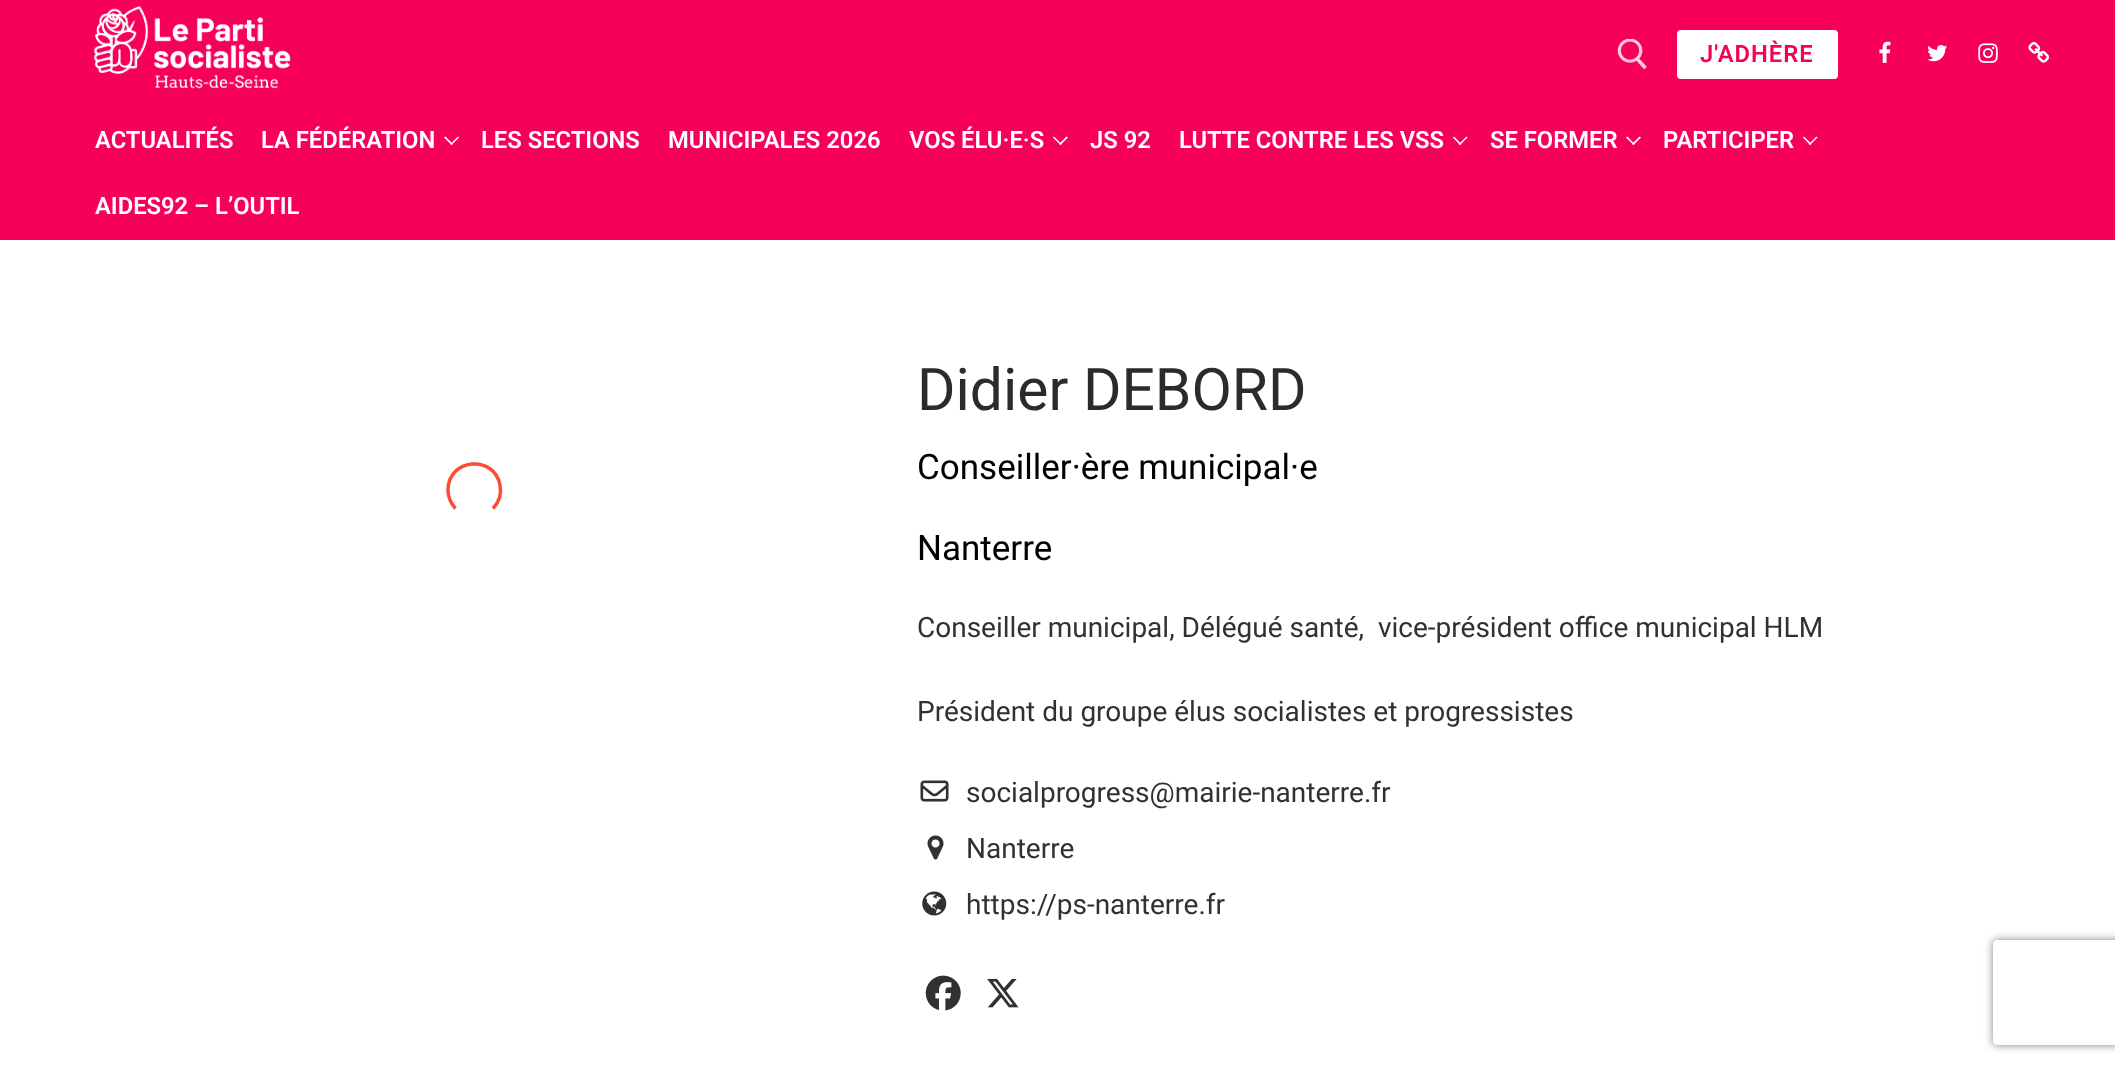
<?xml version="1.0" encoding="UTF-8"?>
<svg xmlns="http://www.w3.org/2000/svg" width="2115" height="1068">
    <defs>
        <clipPath id="clip1"><path d="M 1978 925 H 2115 V 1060 H 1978 Z M 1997 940 H 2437 C 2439 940 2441 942 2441 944 V 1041 C 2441 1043 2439 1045 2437 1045 H 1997 C 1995 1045 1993 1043 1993 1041 V 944 C 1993 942 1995 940 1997 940 Z" clip-rule="evenodd"/></clipPath>
        <filter id="blur1" x="-50%" y="-200%" width="200%" height="500%"><feGaussianBlur stdDeviation="4.5"/></filter>
    </defs>
    <rect width="100%" height="100%" fill="#FFFFFF"/>
    <rect x="0" y="0" width="2115" height="240" fill="#F70059"/>
    <image x="93" y="6" width="198" height="83" href="img_01.png"/>
    <image x="1617" y="39" width="30" height="31" href="img_02.png"/>
    <rect x="1677" y="30" width="161" height="49" rx="4" fill="#FFFFFF"/>
    <text x="1700" y="62" font-family="Roboto" font-size="23.75" font-weight="600" letter-spacing="1" fill="#F70059">J'ADHÈRE</text>
    <image x="1879" y="41" width="12" height="22" href="img_03.png"/>
    <image x="1927" y="45" width="21" height="17" href="img_04.png"/>
    <image x="1978" y="43" width="20" height="20" href="img_05.png"/>
    <image x="2028" y="42" width="22" height="21" href="img_06.png"/>
    <text x="95" y="148" font-family="Roboto" font-size="23.75" font-weight="600" fill="#FFFFFF">ACTUALITÉS</text>
    <text x="261" y="148" font-family="Roboto" font-size="23.75" font-weight="600" fill="#FFFFFF">LA FÉDÉRATION</text>
    <path d="M 451.5 145 L 444 137.5 L 445.5 136.5 L 453 144 Z" fill="#FFFFFF"/>
    <path d="M 451.5 145 L 450.5 144 L 458 136.5 L 459 137.5 Z" fill="#FFFFFF"/>
    <text x="481" y="148" font-family="Roboto" font-size="23.75" font-weight="600" fill="#FFFFFF">LES SECTIONS</text>
    <text x="668" y="148" font-family="Roboto" font-size="23.75" font-weight="600" fill="#FFFFFF">MUNICIPALES 2026</text>
    <text x="909" y="148" font-family="Roboto" font-size="23.75" font-weight="600" fill="#FFFFFF">VOS ÉLU·E·S</text>
    <path d="M 1060.5 145 L 1053 137.5 L 1054 136.5 L 1061.5 144 Z" fill="#FFFFFF"/>
    <path d="M 1060.5 145 L 1059 144 L 1066.5 136.5 L 1068 137.5 Z" fill="#FFFFFF"/>
    <text x="1090" y="148" font-family="Roboto" font-size="23.75" font-weight="600" fill="#FFFFFF">JS 92</text>
    <text x="1179" y="148" font-family="Roboto" font-size="23.75" font-weight="600" fill="#FFFFFF">LUTTE CONTRE LES VSS</text>
    <path d="M 1460 145 L 1453 137.5 L 1454 136.5 L 1461.5 144 Z" fill="#FFFFFF"/>
    <path d="M 1460 145 L 1459 144 L 1466.5 136.5 L 1467.5 137.5 Z" fill="#FFFFFF"/>
    <text x="1490" y="148" font-family="Roboto" font-size="23.75" font-weight="600" fill="#FFFFFF">SE FORMER</text>
    <path d="M 1633.5 145 L 1626 137.5 L 1627.5 136.5 L 1634.5 144 Z" fill="#FFFFFF"/>
    <path d="M 1633.5 145 L 1632 144 L 1639.5 136.5 L 1641 137.5 Z" fill="#FFFFFF"/>
    <text x="1663" y="148" font-family="Roboto" font-size="23.75" font-weight="600" fill="#FFFFFF">PARTICIPER</text>
    <path d="M 1810 145 L 1803 137.5 L 1804 136.5 L 1811.5 144 Z" fill="#FFFFFF"/>
    <path d="M 1810 145 L 1809 144 L 1816.5 136.5 L 1817.5 137.5 Z" fill="#FFFFFF"/>
    <text x="95" y="214" font-family="Roboto" font-size="23.75" font-weight="600" fill="#FFFFFF">AIDES92 – L’OUTIL</text>
    <path d="M 455.5 508.5 C 451 503.5 448 497 448 490 C 448 458.5 494 454 500 485 C 501.5 493.5 499 502.5 493 508.5" fill="none" stroke="#FB4C35" stroke-width="3.5"/>
    <text x="917" y="410" font-family="Roboto" font-size="58.75" fill="#2B2B2B">Didier DEBORD</text>
    <text x="917" y="479" font-family="Roboto" font-size="35" fill="#000000">Conseiller·ère municipal·e</text>
    <text x="917" y="560" font-family="Roboto" font-size="35" fill="#000000">Nanterre</text>
    <text x="917" y="637" font-family="Roboto" font-size="28" fill="#313131" xml:space="preserve">Conseiller municipal, Délégué santé,  vice-président office municipal HLM</text>
    <text x="917" y="721" font-family="Roboto" font-size="28" fill="#313131">Président du groupe élus socialistes et progressistes</text>
    <image x="920" y="780" width="29" height="22" href="img_07.png"/>
    <text x="966" y="802" font-family="Roboto" font-size="28" fill="#313131">socialprogress@mairie-nanterre.fr</text>
    <image x="927" y="835" width="17" height="25" href="img_08.png"/>
    <text x="966" y="858" font-family="Roboto" font-size="28" fill="#313131">Nanterre</text>
    <image x="922" y="891" width="25" height="25" href="img_09.png"/>
    <text x="966" y="914" font-family="Roboto" font-size="28" fill="#313131">https://ps-nanterre.fr</text>
    <image x="925" y="975" width="36" height="36" href="img_10.png"/>
    <image x="987" y="978" width="32" height="30" href="img_11.png"/>
    <g clip-path="url(#clip1)">
        <rect x="1993" y="940" width="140" height="105" rx="4" fill="#808080" filter="url(#blur1)"/>
    </g>
</svg>
